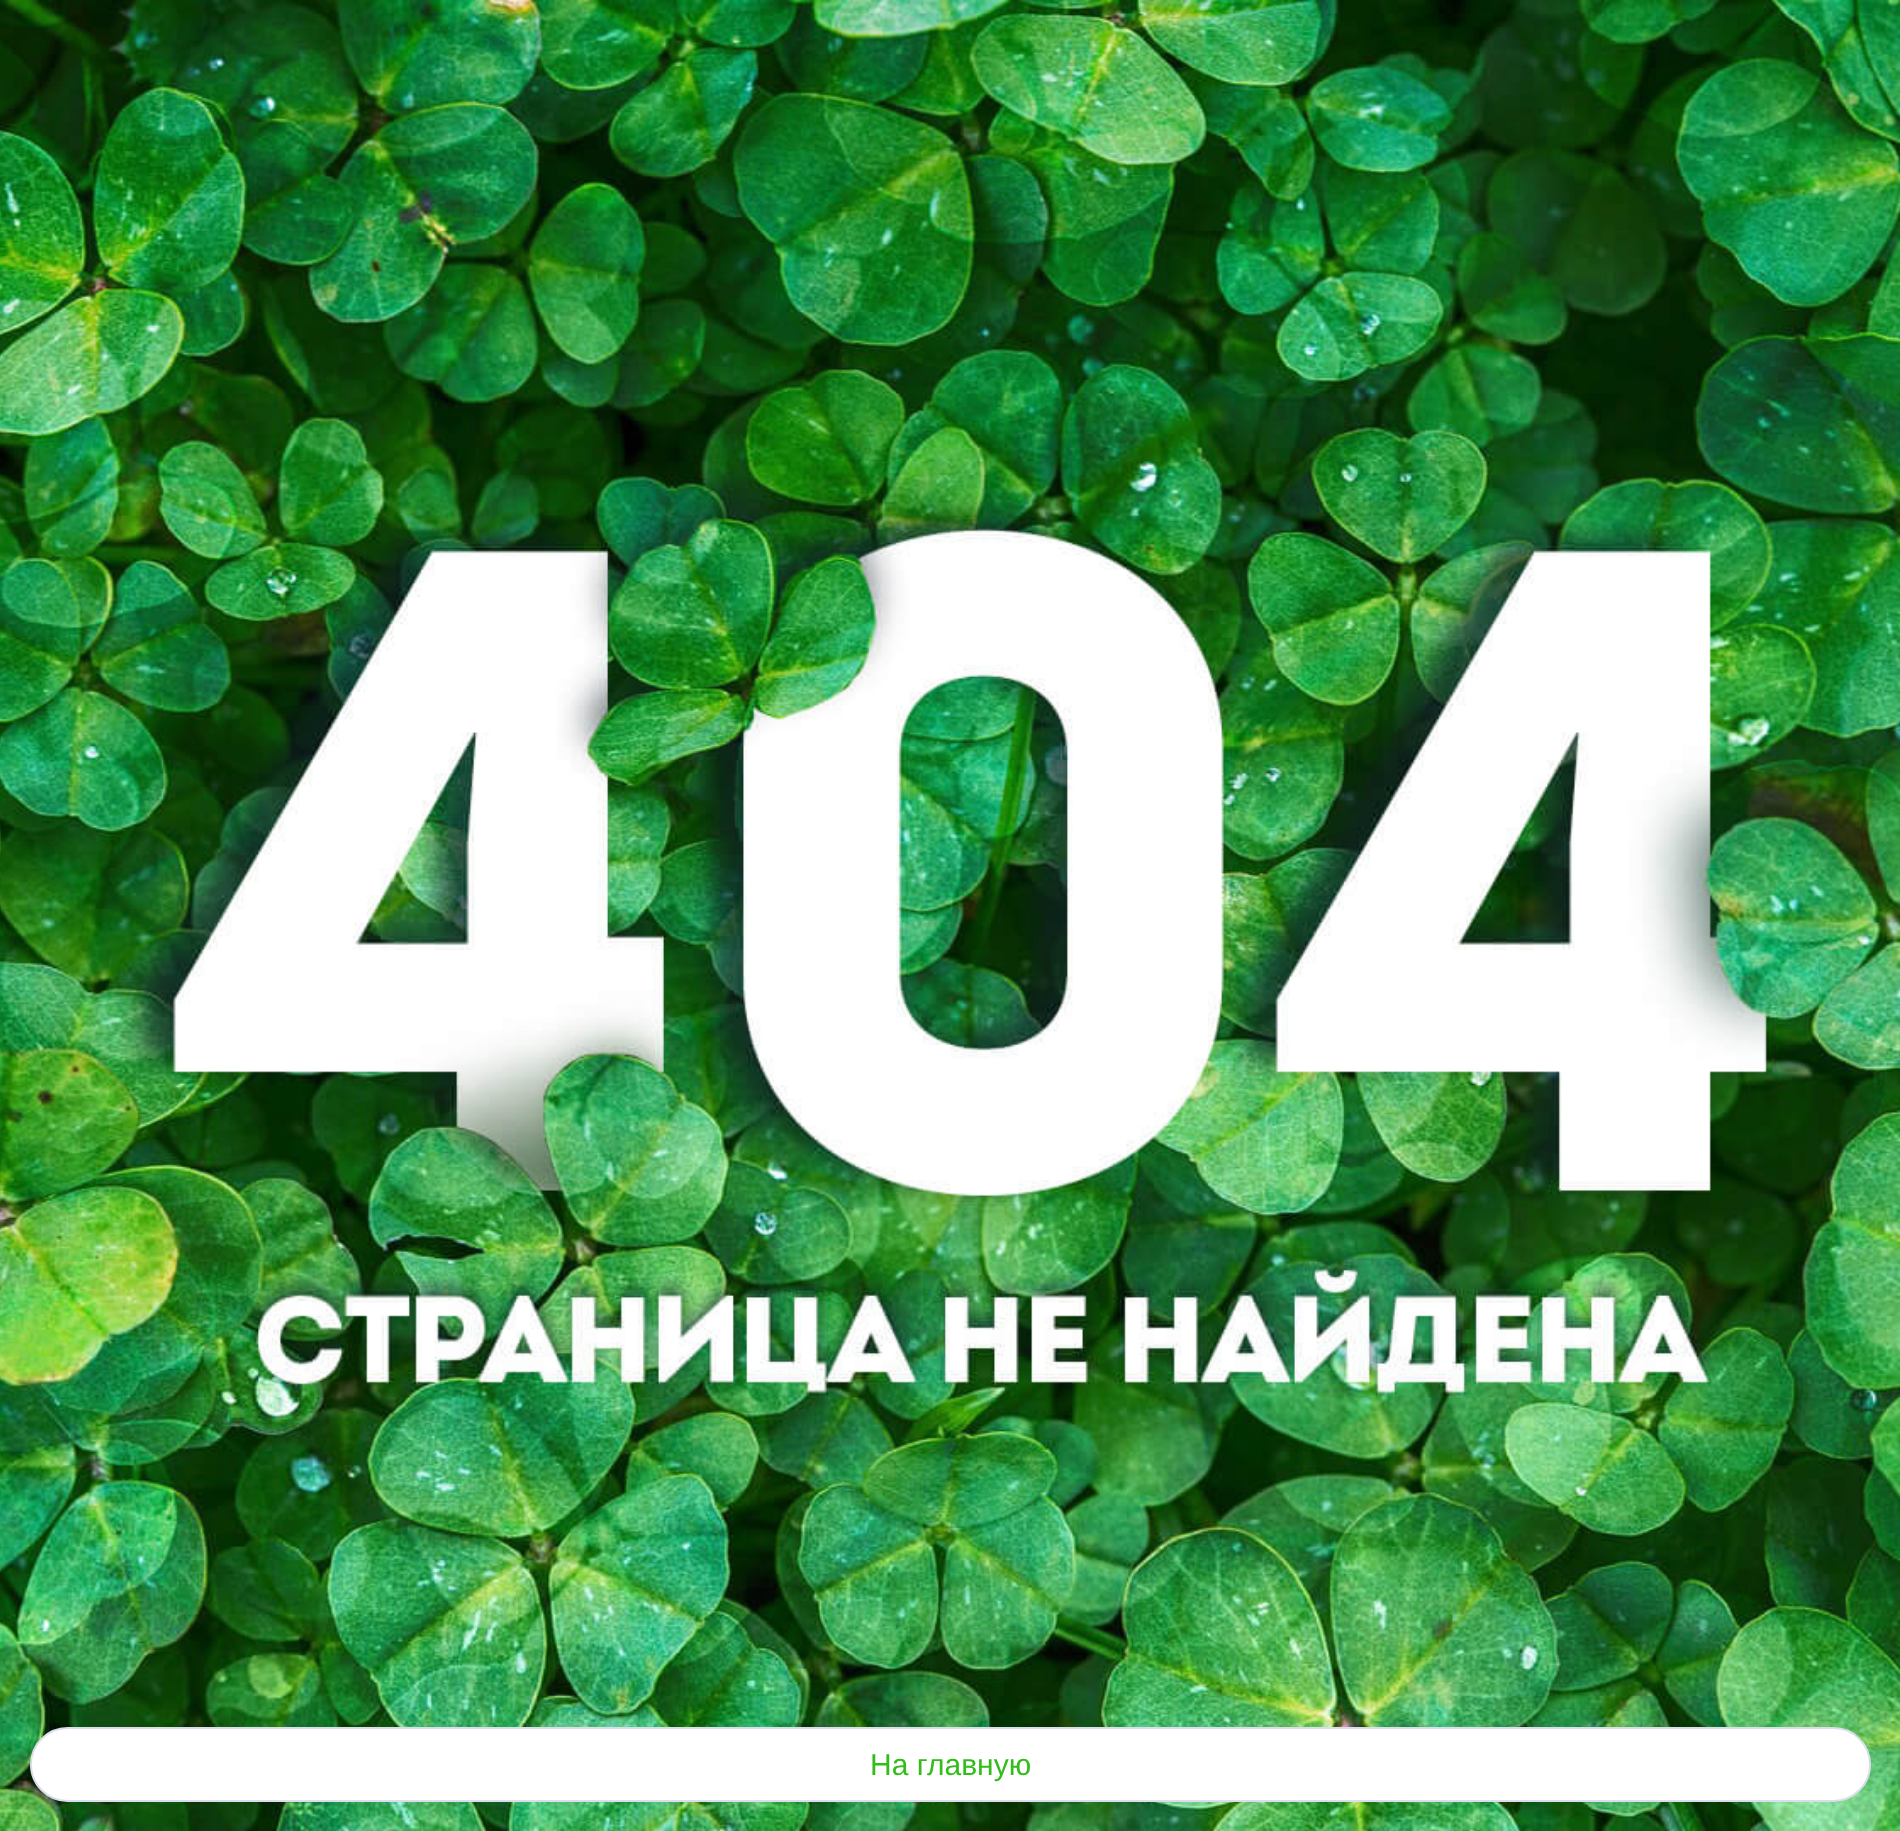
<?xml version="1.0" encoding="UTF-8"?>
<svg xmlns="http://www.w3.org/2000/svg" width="1900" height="1831">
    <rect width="100%" height="100%" fill="#FFFFFF"/>
    <image x="0" y="0" width="1900" height="1831" href="img_01.png"/>
    <rect x="31" y="1728" width="1839" height="73" rx="36.5" fill="#FFFFFF" stroke="#DADEEC" stroke-width="2"/>
    <text x="870" y="1775" font-family="Liberation Sans" font-size="30" fill="#32BD1B">На главную</text>
</svg>
